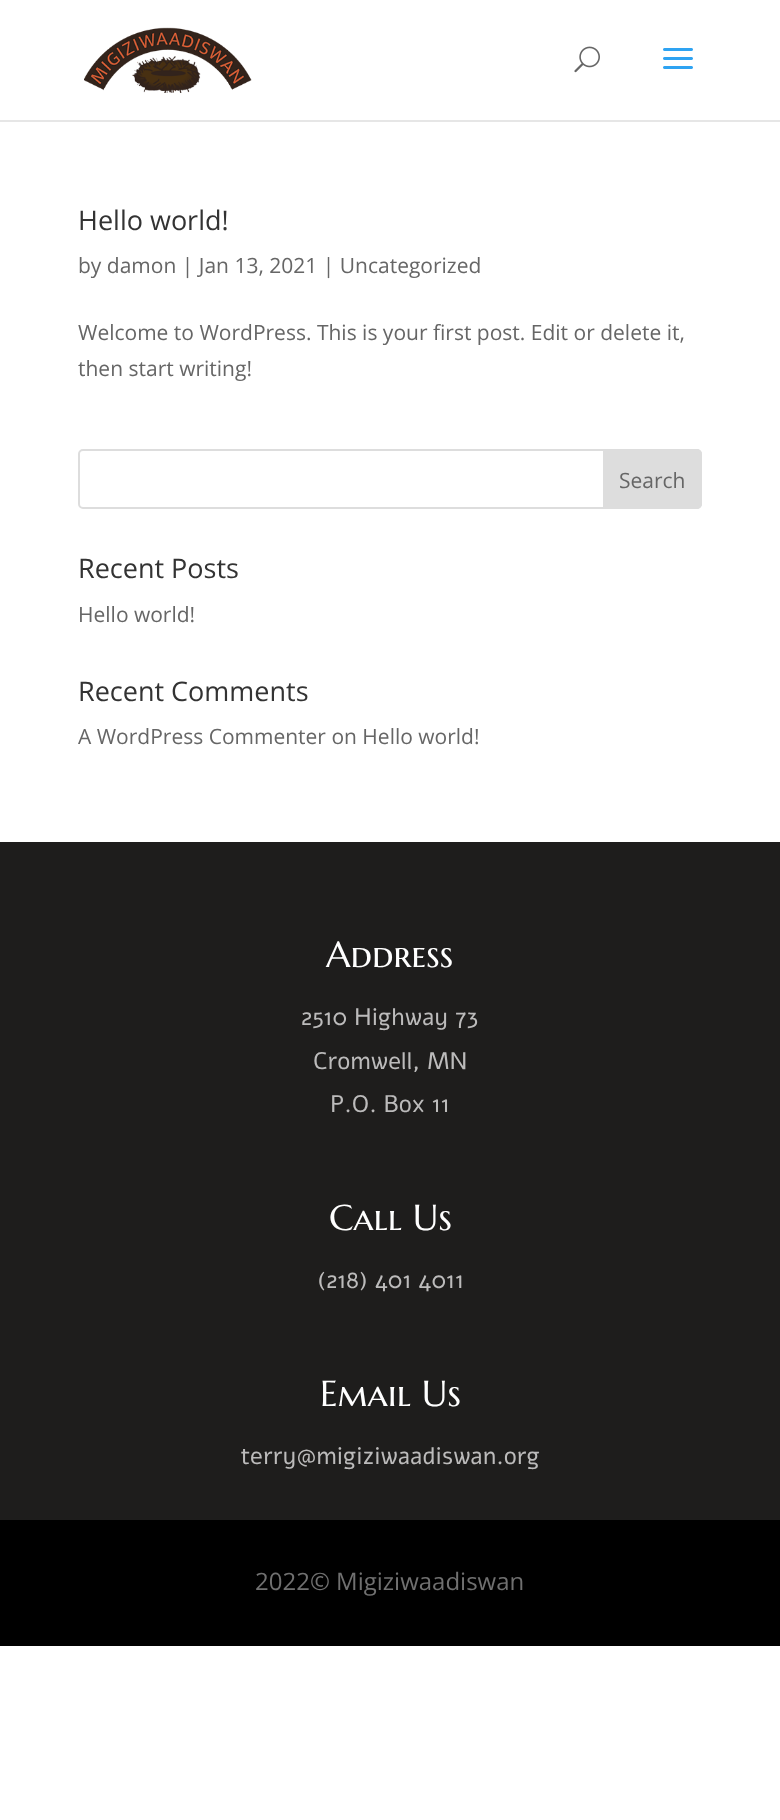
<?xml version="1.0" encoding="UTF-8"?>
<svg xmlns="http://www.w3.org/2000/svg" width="780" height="1820">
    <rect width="100%" height="100%" fill="#FFFFFF"/>
    <rect x="0" y="120" width="780" height="2" fill="#E6E6E6"/>
    <image x="84" y="27" width="168" height="66" href="img_01.png"/>
    <image x="574" y="46" width="26" height="27" href="img_02.png"/>
    <image x="663" y="48" width="30" height="21" href="img_03.png"/>
    <text x="78" y="230" font-family="Open Sans" font-size="27" fill="#333333">Hello world!</text>
    <text x="78" y="273" font-family="Open Sans" font-size="21" fill="#666666">by damon | Jan 13, 2021 | Uncategorized</text>
    <text font-family="Open Sans" font-size="21" fill="#666666">
        <tspan x="78" y="340">Welcome to WordPress. This is your first post. Edit or delete it,</tspan>
        <tspan x="78" y="376">then start writing!</tspan>
    </text>
    <rect x="79" y="450" width="622" height="58" rx="4" fill="none" stroke="#DDDDDD" stroke-width="2"/>
    <path d="M 604 450 H 697 C 699 450 701 452 701 454 V 504 C 701 506 699 508 697 508 H 604 Z" fill="#DDDDDD" stroke="#DDDDDD" stroke-width="2"/>
    <text x="619" y="488" font-family="Open Sans" font-size="21" fill="#666666">Search</text>
    <text x="78" y="578" font-family="Open Sans" font-size="27" fill="#333333">Recent Posts</text>
    <text x="78" y="622" font-family="Open Sans" font-size="21" fill="#666666">Hello world!</text>
    <text x="78" y="701" font-family="Open Sans" font-size="27" fill="#333333">Recent Comments</text>
    <text x="78" y="744" font-family="Open Sans" font-size="21" fill="#666666">A WordPress Commenter on Hello world!</text>
    <rect x="0" y="842" width="780" height="678" fill="#1E1D1C"/>
    <text x="326" y="967" font-family="Marcellus SC" font-size="36" fill="#FFFFFF">Address</text>
    <text x="301" y="1025" font-family="Alef" font-size="24" fill="#BCBBBB">2510 Highway 73</text>
    <text x="313" y="1069" font-family="Alef" font-size="24" fill="#BCBBBB">Cromwell, MN</text>
    <text x="330" y="1112" font-family="Alef" font-size="24" fill="#BCBBBB">P.O. Box 11</text>
    <text x="329" y="1230" font-family="Marcellus SC" font-size="36" fill="#FFFFFF">Call Us</text>
    <text x="317" y="1288" font-family="Alef" font-size="24" fill="#BCBBBB">(218) 401 4011</text>
    <text x="320" y="1406" font-family="Marcellus SC" font-size="36" fill="#FFFFFF">Email Us</text>
    <text x="240" y="1464" font-family="Alef" font-size="24" fill="#BCBBBB">terry@migiziwaadiswan.org</text>
    <rect x="0" y="1520" width="780" height="126" fill="#000000"/>
    <text x="255" y="1590" font-family="Open Sans" font-size="24" fill="#707070">2022© Migiziwaadiswan</text>
</svg>
